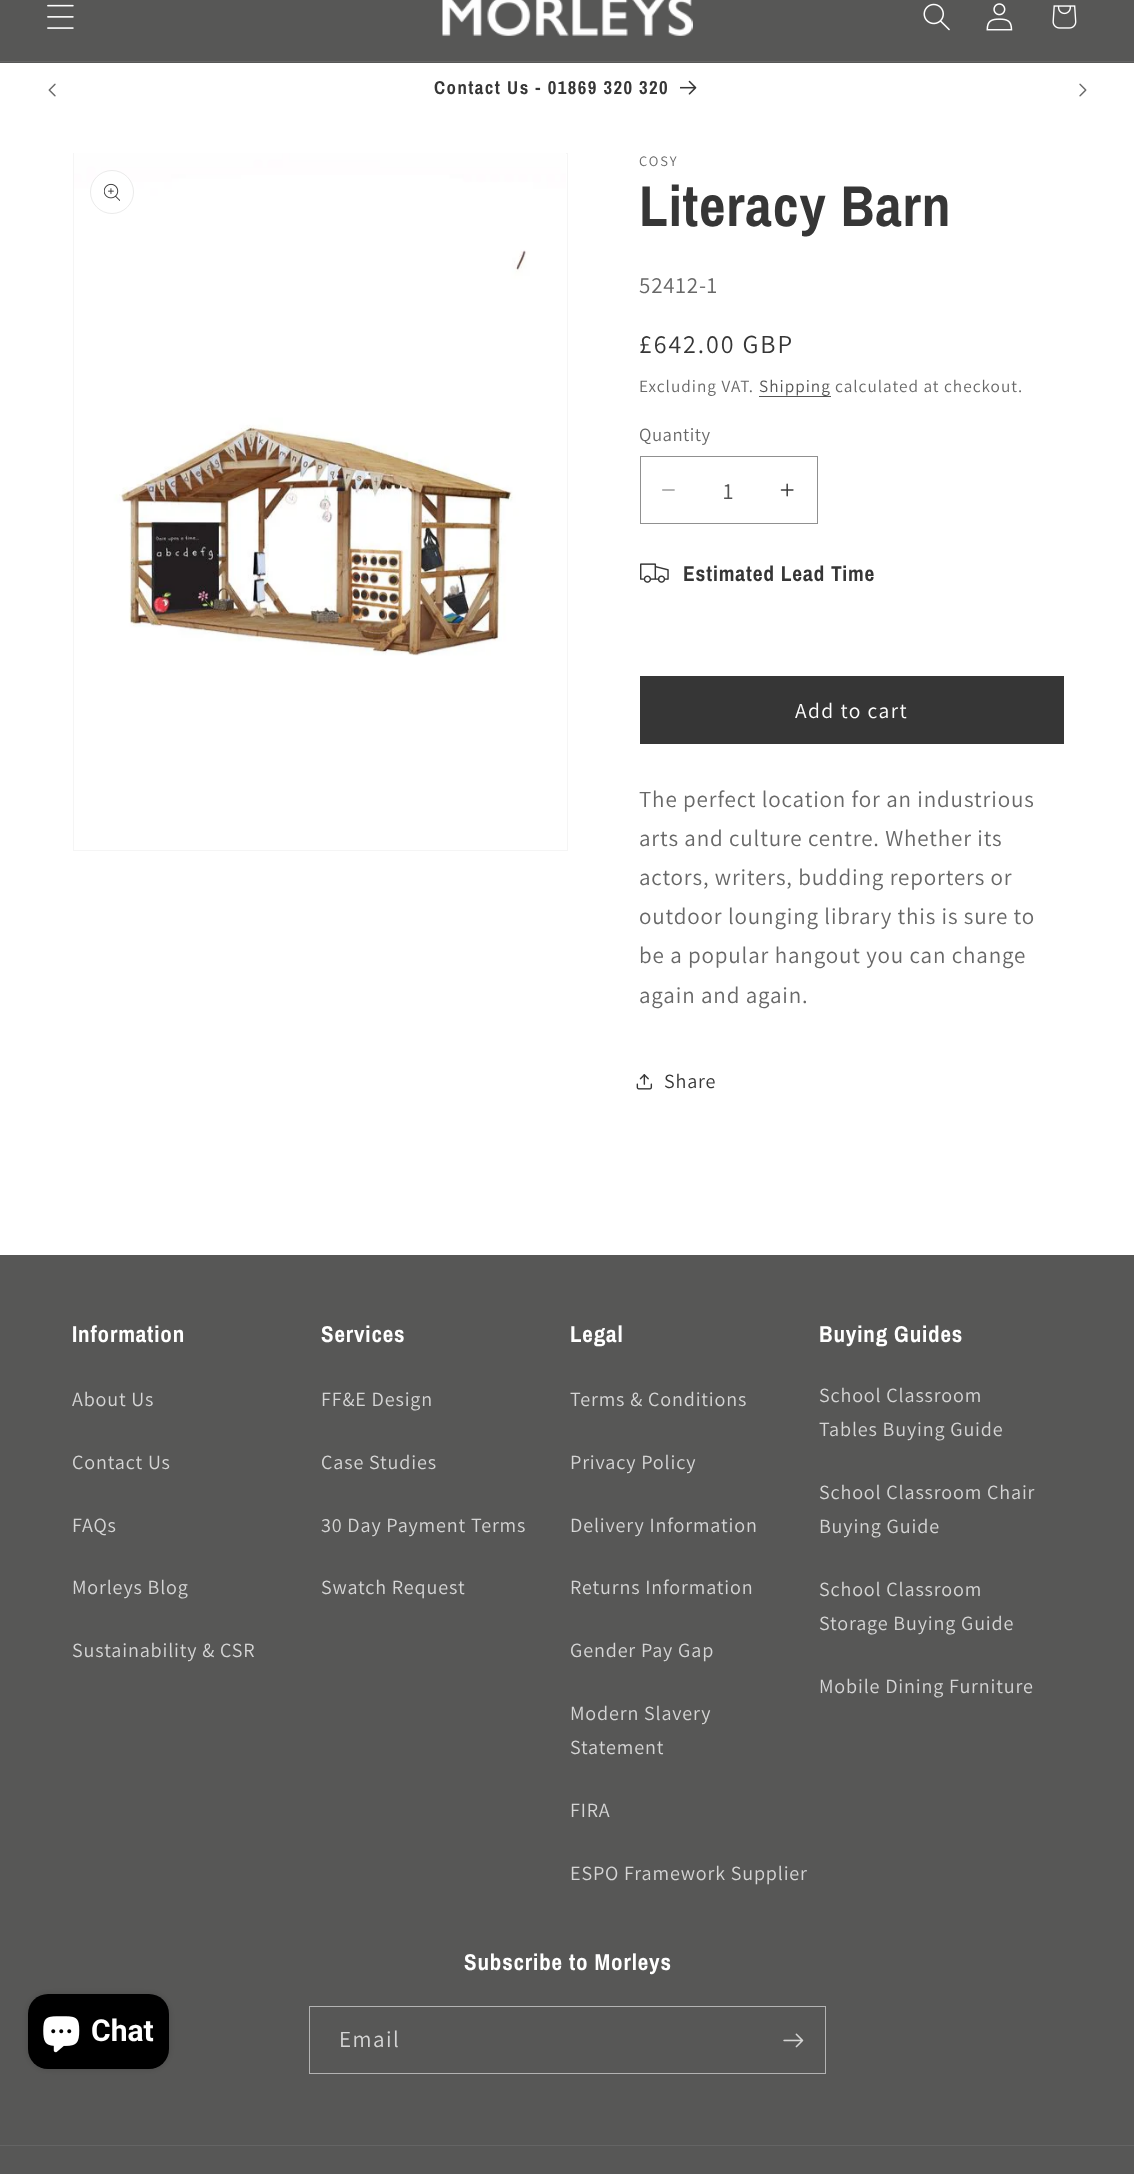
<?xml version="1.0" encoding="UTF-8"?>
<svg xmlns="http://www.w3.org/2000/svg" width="1134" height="2174">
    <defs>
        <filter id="blur1" x="-50%" y="-200%" width="200%" height="500%"><feGaussianBlur stdDeviation="3"/></filter>
    </defs>
    <rect width="100%" height="100%" fill="#FFFFFF"/>
    <rect x="0" y="0" width="1134" height="63" fill="#575756"/>
    <rect x="0" y="61" width="1134" height="1" fill="#646464"/>
    <image x="47" y="4" width="27" height="25" href="img_01.png"/>
    <image x="442" y="0" width="251" height="36" href="img_02.png"/>
    <image x="923" y="3" width="27" height="28" href="img_03.png"/>
    <image x="986" y="3" width="27" height="28" href="img_04.png"/>
    <image x="1052" y="5" width="25" height="24" href="img_05.png"/>
    <image x="48" y="83" width="8" height="14" href="img_06.png"/>
    <text x="434" y="94" font-family="Archivo Narrow" font-size="18.75" font-weight="700" letter-spacing="1.45" fill="#363636">Contact Us - 01869 320 320</text>
    <image x="680" y="80" width="17" height="15" href="img_07.png"/>
    <image x="1079" y="83" width="8" height="14" href="img_08.png"/>
    <rect x="73.5" y="153.5" width="494" height="697" fill="none" stroke="#F5F5F5"/>
    <image x="74" y="153" width="492" height="503" href="img_09.png"/>
    <circle cx="112" cy="192" r="21.5" fill="#FFFFFF" stroke="#EBEBEB"/>
    <image x="104" y="183" width="16" height="18" href="img_10.png"/>
    <text x="639" y="166" font-family="Assistant" font-size="14.5" letter-spacing="1.9" fill="#686868">COSY</text>
    <text x="639" y="226" font-family="Archivo Narrow" font-size="57.5" font-weight="700" letter-spacing="0.85" fill="#363636">Literacy Barn</text>
    <text x="639" y="293" font-family="Assistant" font-size="23" letter-spacing="0.85" fill="#686868">52412-1</text>
    <text x="639" y="353" font-family="Assistant" font-size="26" letter-spacing="1.9" fill="#363636">£642.00 GBP</text>
    <text x="639" y="392" font-family="Assistant" font-size="17.25" letter-spacing="1" fill="#686868">Excluding VAT.</text>
    <text x="759" y="392" font-family="Assistant" font-size="17.25" letter-spacing="1" fill="#545454">Shipping</text>
    <rect x="759" y="396" width="72" height="1" fill="#545454"/>
    <text x="835" y="392" font-family="Assistant" font-size="17.25" letter-spacing="1" fill="#686868">calculated at checkout.</text>
    <text x="639" y="441" font-family="Assistant" font-size="18.75" letter-spacing="0.5" fill="#686868">Quantity</text>
    <image x="662" y="489" width="13" height="2" href="img_11.png"/>
    <image x="780" y="483" width="14" height="14" href="img_12.png"/>
    <rect x="640.5" y="456.5" width="177" height="67" fill="none" stroke="#909090"/>
    <text x="723" y="499" font-family="Assistant" font-size="23" fill="#545454">1</text>
    <image x="640" y="563" width="29" height="20" href="img_13.png"/>
    <text x="683" y="581" font-family="Archivo Narrow" font-size="21.5" font-weight="700" letter-spacing="0.85" fill="#363636">Estimated Lead Time</text>
    <rect x="640" y="676" width="424" height="68" fill="#363636"/>
    <text x="795" y="718" font-family="Assistant" font-size="21.5" letter-spacing="1.45" fill="#FFFFFF">Add to cart</text>
    <text font-family="Assistant" font-size="23" letter-spacing="0.85" fill="#686868">
        <tspan x="639" y="807">The perfect location for an industrious</tspan>
        <tspan x="639" y="846">arts and culture centre. Whether its</tspan>
        <tspan x="639" y="885">actors, writers, budding reporters or</tspan>
        <tspan x="639" y="924">outdoor lounging library this is sure to</tspan>
        <tspan x="639" y="963">be a popular hangout you can change</tspan>
        <tspan x="639" y="1003">again and again.</tspan>
    </text>
    <image x="636" y="1074" width="17" height="16" href="img_14.png"/>
    <text x="664" y="1088" font-family="Assistant" font-size="20.1" letter-spacing="0.85" fill="#363636">Share</text>
    <rect x="0" y="1255" width="1134" height="919" fill="#575756"/>
    <text x="72" y="1342" font-family="Archivo Narrow" font-size="23" font-weight="700" letter-spacing="0.85" fill="#FFFFFF">Information</text>
    <text x="72" y="1406" font-family="Assistant" font-size="20.1" letter-spacing="0.85" fill="#D5D5D5">About Us</text>
    <text x="72" y="1469" font-family="Assistant" font-size="20.1" letter-spacing="0.85" fill="#D5D5D5">Contact Us</text>
    <text x="72" y="1532" font-family="Assistant" font-size="20.1" letter-spacing="0.85" fill="#D5D5D5">FAQs</text>
    <text x="72" y="1594" font-family="Assistant" font-size="20.1" letter-spacing="0.85" fill="#D5D5D5">Morleys Blog</text>
    <text x="72" y="1657" font-family="Assistant" font-size="20.1" letter-spacing="0.85" fill="#D5D5D5">Sustainability &amp; CSR</text>
    <text x="321" y="1342" font-family="Archivo Narrow" font-size="23" font-weight="700" letter-spacing="0.85" fill="#FFFFFF">Services</text>
    <text x="321" y="1406" font-family="Assistant" font-size="20.1" letter-spacing="0.85" fill="#D5D5D5">FF&amp;E Design</text>
    <text x="321" y="1469" font-family="Assistant" font-size="20.1" letter-spacing="0.85" fill="#D5D5D5">Case Studies</text>
    <text x="321" y="1532" font-family="Assistant" font-size="20.1" letter-spacing="0.85" fill="#D5D5D5">30 Day Payment Terms</text>
    <text x="321" y="1594" font-family="Assistant" font-size="20.1" letter-spacing="0.85" fill="#D5D5D5">Swatch Request</text>
    <text x="570" y="1342" font-family="Archivo Narrow" font-size="23" font-weight="700" letter-spacing="0.85" fill="#FFFFFF">Legal</text>
    <text x="570" y="1406" font-family="Assistant" font-size="20.1" letter-spacing="0.85" fill="#D5D5D5">Terms &amp; Conditions</text>
    <text x="570" y="1469" font-family="Assistant" font-size="20.1" letter-spacing="0.85" fill="#D5D5D5">Privacy Policy</text>
    <text x="570" y="1532" font-family="Assistant" font-size="20.1" letter-spacing="0.85" fill="#D5D5D5">Delivery Information</text>
    <text x="570" y="1594" font-family="Assistant" font-size="20.1" letter-spacing="0.85" fill="#D5D5D5">Returns Information</text>
    <text x="570" y="1657" font-family="Assistant" font-size="20.1" letter-spacing="0.85" fill="#D5D5D5">Gender Pay Gap</text>
    <text font-family="Assistant" font-size="20.1" letter-spacing="0.85" fill="#D5D5D5">
        <tspan x="570" y="1720">Modern Slavery</tspan>
        <tspan x="570" y="1754">Statement</tspan>
    </text>
    <text x="570" y="1817" font-family="Assistant" font-size="20.1" letter-spacing="0.85" fill="#D5D5D5">FIRA</text>
    <text x="570" y="1880" font-family="Assistant" font-size="20.1" letter-spacing="0.85" fill="#D5D5D5">ESPO Framework Supplier</text>
    <text x="819" y="1342" font-family="Archivo Narrow" font-size="23" font-weight="700" letter-spacing="0.85" fill="#FFFFFF">Buying Guides</text>
    <text font-family="Assistant" font-size="20.1" letter-spacing="0.85" fill="#D5D5D5">
        <tspan x="819" y="1402">School Classroom</tspan>
        <tspan x="819" y="1436">Tables Buying Guide</tspan>
    </text>
    <text font-family="Assistant" font-size="20.1" letter-spacing="0.85" fill="#D5D5D5">
        <tspan x="819" y="1499">School Classroom Chair</tspan>
        <tspan x="819" y="1533">Buying Guide</tspan>
    </text>
    <text font-family="Assistant" font-size="20.1" letter-spacing="0.85" fill="#D5D5D5">
        <tspan x="819" y="1596">School Classroom</tspan>
        <tspan x="819" y="1630">Storage Buying Guide</tspan>
    </text>
    <text x="819" y="1693" font-family="Assistant" font-size="20.1" letter-spacing="0.85" fill="#D5D5D5">Mobile Dining Furniture</text>
    <text x="464" y="1970" font-family="Archivo Narrow" font-size="23" font-weight="700" letter-spacing="0.85" fill="#FFFFFF">Subscribe to Morleys</text>
    <rect x="309.5" y="2006.5" width="516" height="67" fill="none" stroke="#B3B3B3"/>
    <text x="339" y="2047" font-family="Assistant" font-size="23" letter-spacing="1.45" fill="#D5D5D5">Email</text>
    <image x="783" y="2033" width="21" height="15" href="img_15.png"/>
    <rect x="0" y="2145" width="1134" height="1" fill="#646464"/>
    <rect x="28" y="1994" width="141" height="75" rx="20" fill="#000000" fill-opacity="0.15" filter="url(#blur1)"/>
    <rect x="28" y="1994" width="141" height="75" rx="20" fill="#000000"/>
    <image x="43" y="2016" width="37" height="37" href="img_16.png"/>
    <text x="91" y="2041" font-family="Roboto" font-size="30" font-weight="700" fill="#FFFFFF">Chat</text>
</svg>
